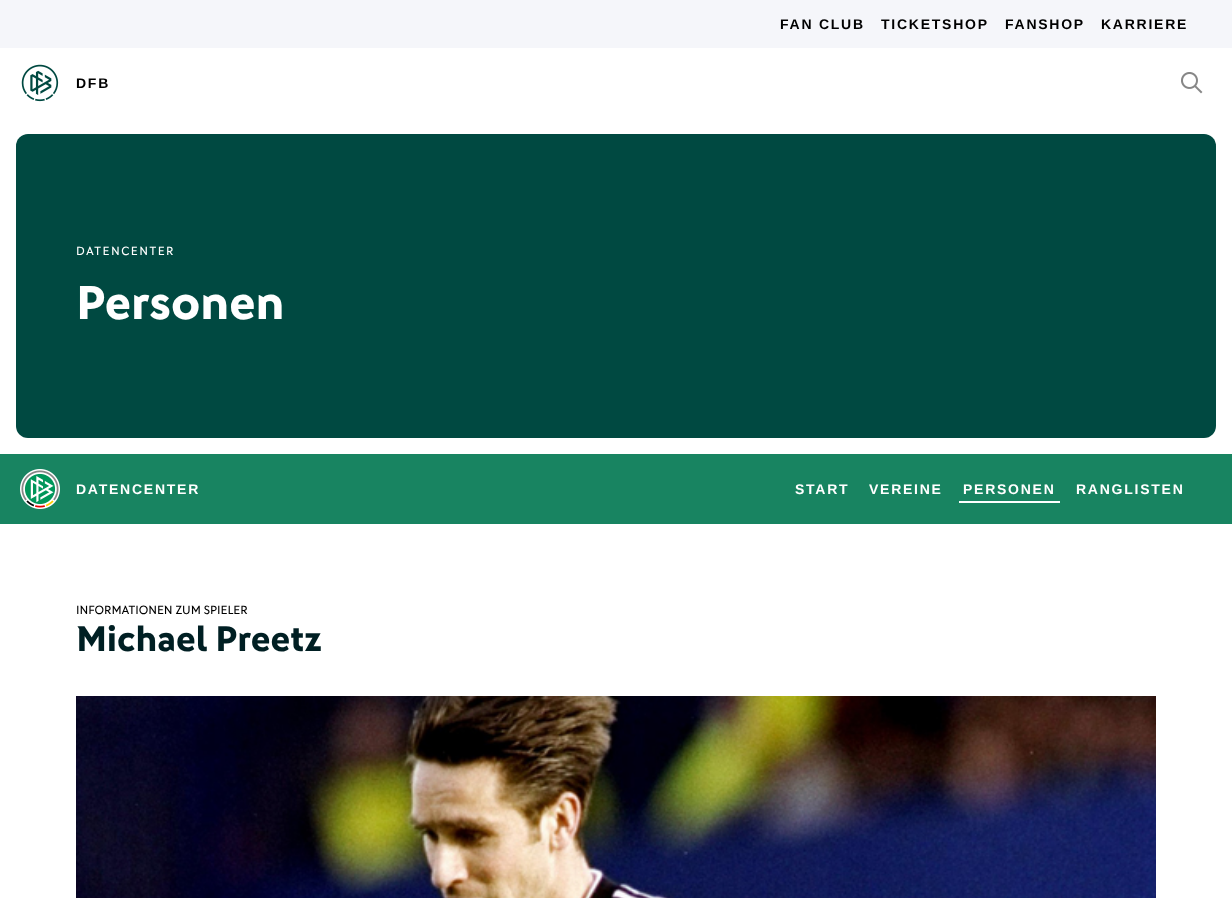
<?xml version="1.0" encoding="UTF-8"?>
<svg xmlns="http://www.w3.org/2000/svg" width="1232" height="898">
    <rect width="100%" height="100%" fill="#FFFFFF"/>
    <rect x="0" y="0" width="1232" height="48" fill="#F5F6FA"/>
    <text x="780" y="29" font-family="Liberation Sans" font-size="14" font-weight="700" letter-spacing="1.75" fill="#000000">FAN CLUB</text>
    <text x="881" y="29" font-family="Liberation Sans" font-size="14" font-weight="700" letter-spacing="1.75" fill="#000000">TICKETSHOP</text>
    <text x="1005" y="29" font-family="Liberation Sans" font-size="14" font-weight="700" letter-spacing="1.75" fill="#000000">FANSHOP</text>
    <text x="1101" y="29" font-family="Liberation Sans" font-size="14" font-weight="700" letter-spacing="1.75" fill="#000000">KARRIERE</text>
    <image x="21" y="64" width="38" height="38" href="img_01.png"/>
    <text x="76" y="88" font-family="Liberation Sans" font-size="14" font-weight="700" letter-spacing="1.75" fill="#000000">DFB</text>
    <image x="1181" y="72" width="22" height="22" href="img_02.png"/>
    <rect x="16" y="134" width="1200" height="304" rx="12" fill="#004941"/>
    <text x="76" y="255" font-family="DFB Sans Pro" font-size="12" letter-spacing="1.5" fill="#FFFFFF">DATENCENTER</text>
    <text x="76" y="319" font-family="DFB Sans Pro" font-size="48" font-weight="600" fill="#FFFFFF">Personen</text>
    <rect x="0" y="454" width="1232" height="70" fill="#188461"/>
    <image x="20" y="469" width="40" height="40" href="img_03.png"/>
    <text x="76" y="494" font-family="Liberation Sans" font-size="14" font-weight="700" letter-spacing="1.75" fill="#FFFFFF">DATENCENTER</text>
    <text x="795" y="494" font-family="Liberation Sans" font-size="14" font-weight="700" letter-spacing="1.75" fill="#FFFFFF">START</text>
    <text x="869" y="494" font-family="Liberation Sans" font-size="14" font-weight="700" letter-spacing="1.75" fill="#FFFFFF">VEREINE</text>
    <text x="963" y="494" font-family="Liberation Sans" font-size="14" font-weight="700" letter-spacing="1.75" fill="#FFFFFF">PERSONEN</text>
    <rect x="959" y="501" width="101" height="2" fill="#FFFFFF"/>
    <text x="1076" y="494" font-family="Liberation Sans" font-size="14" font-weight="700" letter-spacing="1.75" fill="#FFFFFF">RANGLISTEN</text>
    <text x="76" y="614" font-family="DFB Sans Pro" font-size="12" fill="#000000">INFORMATIONEN ZUM SPIELER</text>
    <text x="76" y="651" font-family="DFB Sans Pro" font-size="36" font-weight="600" fill="#001F23">Michael Preetz</text>
    <image x="76" y="696" width="1080" height="202" href="img_04.png"/>
</svg>
